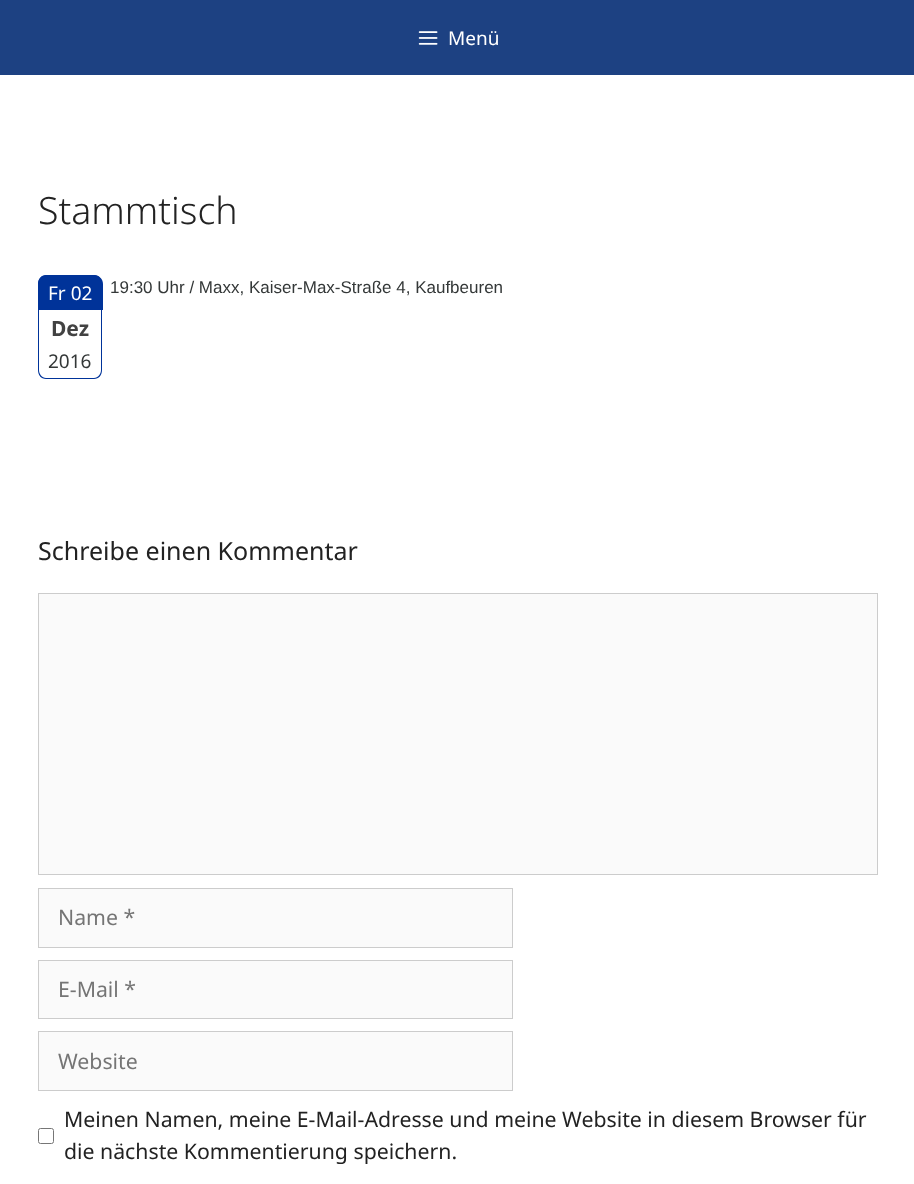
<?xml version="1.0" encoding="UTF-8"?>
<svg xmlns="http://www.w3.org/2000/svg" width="914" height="1184">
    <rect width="100%" height="100%" fill="#FFFFFF"/>
    <rect x="0" y="0" width="914" height="75" fill="#1D4182"/>
    <image x="418" y="31" width="20" height="14" href="img_01.png"/>
    <text x="448" y="45" font-family="Noto Sans" font-size="19" fill="#FFFFFF">Menü</text>
    <text x="38" y="224" font-family="Noto Sans" font-size="37.5" font-weight="300" fill="#222222">Stammtisch</text>
    <path d="M 47 275 H 94 C 99 275 103 279 103 284 V 310 H 38 V 284 C 38 279 42 275 47 275 Z" fill="#003399"/>
    <path d="M 46 275 H 94 C 99 275 102 279 102 284 V 310 H 38 V 284 C 38 279 41 275 46 275 Z M 46 276 H 94 C 98 276 101 280 101 284 V 310 H 39 V 284 C 39 280 42 276 46 276 Z" fill="#003399" fill-rule="evenodd"/>
    <text x="48" y="300" font-family="Noto Sans" font-size="19" fill="#FFFFFF">Fr 02</text>
    <path d="M 38 310 H 102 V 370 C 102 375 99 379 94 379 H 46 C 41 379 38 375 38 370 Z M 39 310 H 101 V 370 C 101 374 98 378 94 378 H 46 C 42 378 39 374 39 370 Z" fill="#003399" fill-rule="evenodd"/>
    <text x="51" y="336" font-family="Noto Sans" font-size="21" font-weight="700" fill="#424242">Dez</text>
    <text x="48" y="368" font-family="Noto Sans" font-size="19" fill="#343838">2016</text>
    <text x="110" y="293" font-family="Liberation Sans" font-size="17" fill="#343838">19:30 Uhr / Maxx, Kaiser-Max-Straße 4, Kaufbeuren</text>
    <text x="38" y="560" font-family="Noto Sans" font-size="25" fill="#222222">Schreibe einen Kommentar</text>
    <rect x="38.5" y="593.5" width="839" height="281" fill="#FAFAFA" stroke="#CCCCCC"/>
    <rect x="38.5" y="888.5" width="474" height="59" fill="#FAFAFA" stroke="#CCCCCC"/>
    <text x="58" y="925" font-family="Noto Sans" font-size="21.25" fill="#757575">Name *</text>
    <rect x="38.5" y="960.5" width="474" height="58" fill="#FAFAFA" stroke="#CCCCCC"/>
    <text x="58" y="997" font-family="Noto Sans" font-size="21.25" fill="#757575">E-Mail *</text>
    <rect x="38.5" y="1031.5" width="474" height="59" fill="#FAFAFA" stroke="#CCCCCC"/>
    <text x="58" y="1069" font-family="Noto Sans" font-size="21.25" fill="#757575">Website</text>
    <rect x="38.5" y="1128.5" width="15" height="15" rx="2" fill="none" stroke="#767676"/>
    <text font-family="Noto Sans" font-size="21.25" fill="#222222">
        <tspan x="64" y="1127">Meinen Namen, meine E-Mail-Adresse und meine Website in diesem Browser für</tspan>
        <tspan x="64" y="1159">die nächste Kommentierung speichern.</tspan>
    </text>
</svg>
